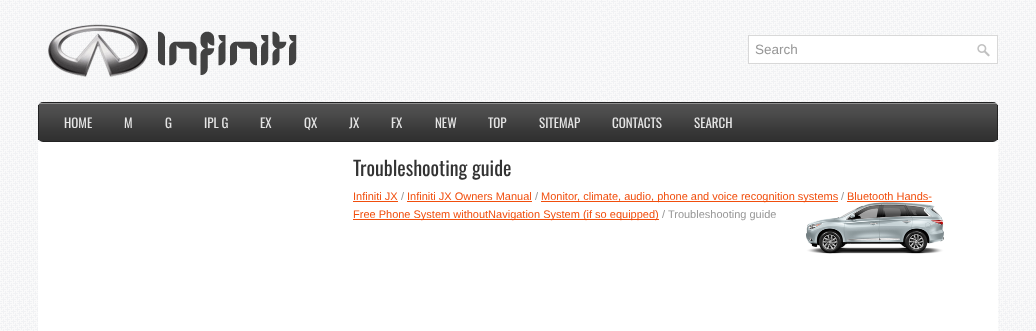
<?xml version="1.0" encoding="UTF-8"?>
<svg xmlns="http://www.w3.org/2000/svg" width="1036" height="331">
    <rect width="100%" height="100%" fill="#FFFFFF"/>
    <image x="0" y="0" width="1036" height="331" href="img_01.png"/>
    <image x="48" y="24" width="249" height="53" href="img_02.png"/>
    <rect x="748.5" y="35.5" width="249" height="28" fill="#FFFFFF" stroke="#D8D8D8"/>
    <text x="755" y="54" font-family="Liberation Sans" font-size="13.5" fill="#979797">Search</text>
    <image x="977" y="44" width="13" height="13" href="img_03.png"/>
    <image x="38" y="102" width="960" height="40" href="img_04.png"/>
    <rect x="997" y="105" width="1" height="35" fill="#232323"/>
    <rect x="38" y="105" width="1" height="35" fill="#232323"/>
    <text x="64" y="128" font-family="Oswald" font-size="13" fill="#E5E5E5">HOME</text>
    <text x="124" y="128" font-family="Oswald" font-size="13" fill="#E5E5E5">M</text>
    <text x="165" y="128" font-family="Oswald" font-size="13" fill="#E5E5E5">G</text>
    <text x="204" y="128" font-family="Oswald" font-size="13" fill="#E5E5E5">IPL G</text>
    <text x="260" y="128" font-family="Oswald" font-size="13" fill="#E5E5E5">EX</text>
    <text x="304" y="128" font-family="Oswald" font-size="13" fill="#E5E5E5">QX</text>
    <text x="349" y="128" font-family="Oswald" font-size="13" fill="#E5E5E5">JX</text>
    <text x="391" y="128" font-family="Oswald" font-size="13" fill="#E5E5E5">FX</text>
    <text x="435" y="128" font-family="Oswald" font-size="13" fill="#E5E5E5">NEW</text>
    <text x="488" y="128" font-family="Oswald" font-size="13" fill="#E5E5E5">TOP</text>
    <text x="539" y="128" font-family="Oswald" font-size="13" fill="#E5E5E5">SITEMAP</text>
    <text x="612" y="128" font-family="Oswald" font-size="13" fill="#E5E5E5">CONTACTS</text>
    <text x="694" y="128" font-family="Oswald" font-size="13" fill="#E5E5E5">SEARCH</text>
    <rect x="38" y="142" width="960" height="189" fill="#FFFFFF"/>
    <text x="353" y="176" font-family="Oswald" font-size="20" fill="#333333">Troubleshooting guide</text>
    <text x="353" y="200" font-family="Liberation Sans" font-size="11" fill="#F14E0D">Infiniti JX</text>
    <rect x="353" y="201" width="45" height="1" fill="#F14E0D"/>
    <text x="401" y="200" font-family="Liberation Sans" font-size="11" fill="#979797">/</text>
    <text x="407" y="200" font-family="Liberation Sans" font-size="11" fill="#F14E0D">Infiniti JX Owners Manual</text>
    <rect x="407" y="201" width="125" height="1" fill="#F14E0D"/>
    <text x="535" y="200" font-family="Liberation Sans" font-size="11" fill="#979797">/</text>
    <rect x="541" y="201" width="297" height="1" fill="#F14E0D"/>
    <image x="806" y="202" width="138" height="52" href="img_05.png"/>
    <text x="541" y="200" font-family="Liberation Sans" font-size="11" fill="#F14E0D">Monitor, climate, audio, phone and voice recognition systems</text>
    <text x="841" y="200" font-family="Liberation Sans" font-size="11" fill="#979797">/</text>
    <text x="847" y="200" font-family="Liberation Sans" font-size="11" fill="#F14E0D">Bluetooth Hands-</text>
    <rect x="847" y="201" width="85" height="1" fill="#F14E0D"/>
    <rect x="353" y="219" width="306" height="1" fill="#F14E0D"/>
    <text x="353" y="218" font-family="Liberation Sans" font-size="11" fill="#F14E0D">Free Phone System withoutNavigation System (if so equipped)</text>
    <text x="662" y="218" font-family="Liberation Sans" font-size="11" fill="#979797">/ Troubleshooting guide</text>
</svg>
